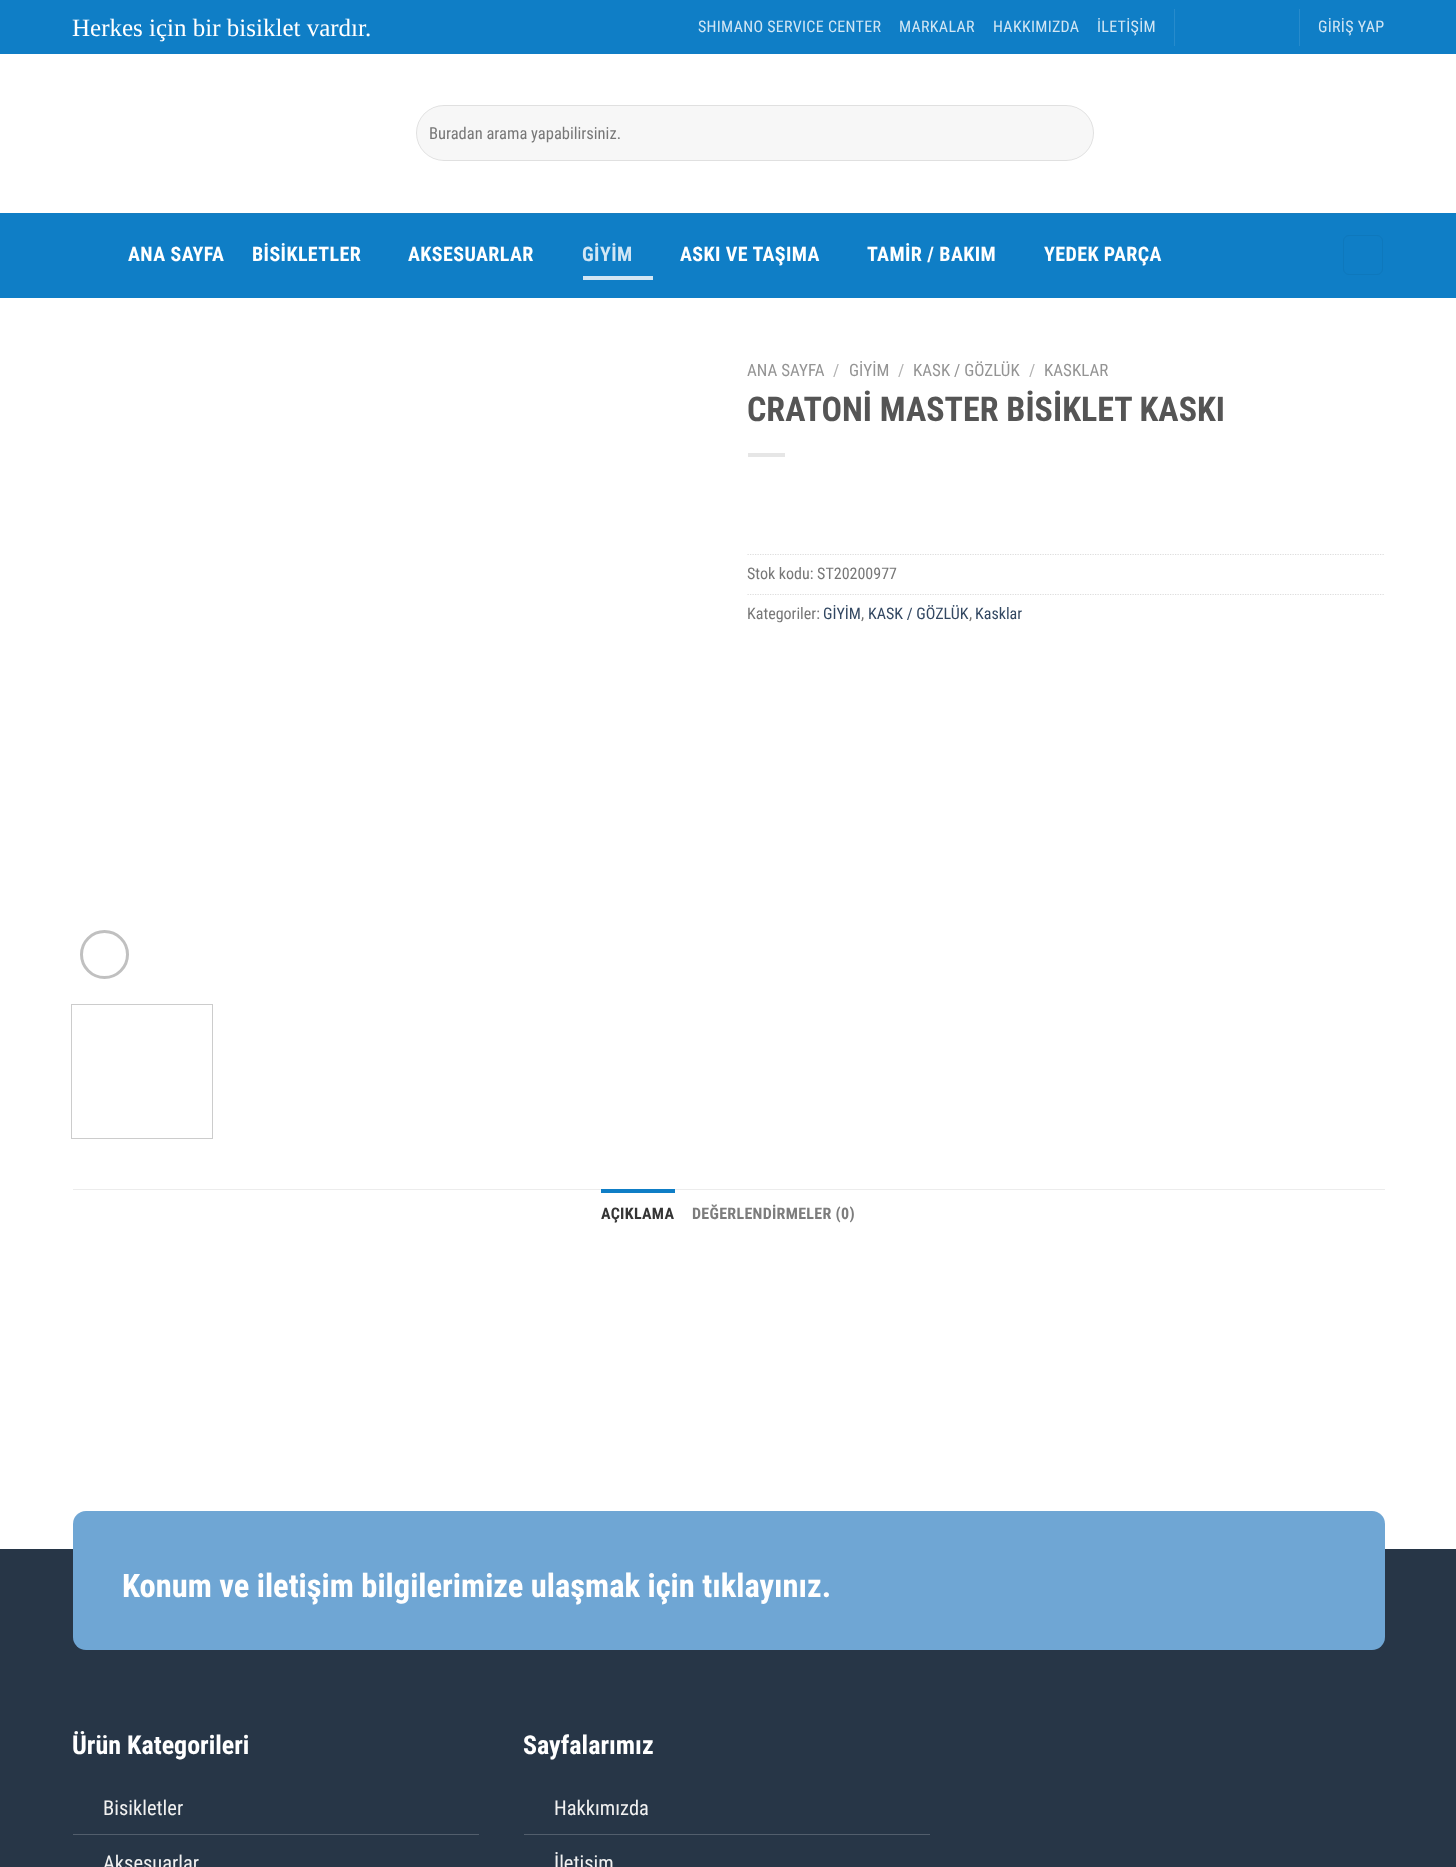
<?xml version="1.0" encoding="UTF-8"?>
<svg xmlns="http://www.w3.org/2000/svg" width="1456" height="1867">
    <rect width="100%" height="100%" fill="#FFFFFF"/>
    <rect x="0" y="0" width="1456" height="54" fill="#0F7EC6"/>
    <text x="72" y="36" font-family="Liberation Serif" font-size="25" fill="#FFFFFF">Herkes için bir bisiklet vardır.</text>
    <text x="698" y="32" font-family="Roboto Condensed" font-size="16" letter-spacing="0.3" fill="#D1E6F4">SHIMANO SERVICE CENTER</text>
    <text x="899" y="32" font-family="Roboto Condensed" font-size="16" letter-spacing="0.3" fill="#D1E6F4">MARKALAR</text>
    <text x="993" y="32" font-family="Roboto Condensed" font-size="16" letter-spacing="0.3" fill="#D1E6F4">HAKKIMIZDA</text>
    <text x="1097" y="32" font-family="Roboto Condensed" font-size="16" letter-spacing="0.3" fill="#D1E6F4">İLETİŞİM</text>
    <rect x="1174" y="9" width="1" height="37" fill="#278BCC"/>
    <rect x="1299" y="9" width="1" height="37" fill="#278BCC"/>
    <text x="1318" y="32" font-family="Roboto Condensed" font-size="16" letter-spacing="0.3" fill="#D1E6F4">GİRİŞ YAP</text>
    <rect x="416" y="105" width="678" height="56" rx="28" fill="#F7F7F7"/>
    <rect x="416.5" y="105.5" width="677" height="55" rx="27.5" fill="none" stroke="#000000" stroke-opacity="0.09"/>
    <text x="429" y="139" font-family="Roboto Condensed" font-size="16.5" fill="#777777">Buradan arama yapabilirsiniz.</text>
    <rect x="0" y="213" width="1456" height="85" fill="#0F7EC6"/>
    <rect x="73" y="213" width="1312" height="1" fill="#197DBE"/>
    <text x="128" y="261" font-family="Roboto Condensed" font-size="20" font-weight="700" letter-spacing="0.4" fill="#FFFFFF">ANA SAYFA</text>
    <text x="252" y="261" font-family="Roboto Condensed" font-size="20" font-weight="700" letter-spacing="0.4" fill="#FFFFFF">BİSİKLETLER</text>
    <text x="408" y="261" font-family="Roboto Condensed" font-size="20" font-weight="700" letter-spacing="0.4" fill="#FFFFFF">AKSESUARLAR</text>
    <text x="582" y="261" font-family="Roboto Condensed" font-size="20" font-weight="700" letter-spacing="0.4" fill="#D1E6F4">GİYİM</text>
    <rect x="583" y="276" width="70" height="4" fill="#D1E6F4"/>
    <text x="680" y="261" font-family="Roboto Condensed" font-size="20" font-weight="700" letter-spacing="0.4" fill="#FFFFFF">ASKI VE TAŞIMA</text>
    <text x="867" y="261" font-family="Roboto Condensed" font-size="20" font-weight="700" letter-spacing="0.4" fill="#FFFFFF">TAMİR / BAKIM</text>
    <text x="1044" y="261" font-family="Roboto Condensed" font-size="20" font-weight="700" letter-spacing="0.4" fill="#FFFFFF">YEDEK PARÇA</text>
    <rect x="1343.5" y="235.5" width="39" height="39" rx="5.5" fill="none" stroke="#0E78BC"/>
    <text x="747" y="376" font-family="Roboto Condensed" font-size="17" fill="#949494">ANA SAYFA</text>
    <text x="833" y="376" font-family="Roboto Condensed" font-size="17" fill="#B2B2B2">/</text>
    <text x="849" y="376" font-family="Roboto Condensed" font-size="17" fill="#949494">GİYİM</text>
    <text x="898" y="376" font-family="Roboto Condensed" font-size="17" fill="#B2B2B2">/</text>
    <text x="913" y="376" font-family="Roboto Condensed" font-size="17" fill="#949494">KASK / GÖZLÜK</text>
    <text x="1029" y="376" font-family="Roboto Condensed" font-size="17" fill="#B2B2B2">/</text>
    <text x="1044" y="376" font-family="Roboto Condensed" font-size="17" fill="#949494">KASKLAR</text>
    <text x="747" y="421" font-family="Roboto Condensed" font-size="34" font-weight="700" fill="#555555">CRATONİ MASTER BİSİKLET KASKI</text>
    <rect x="748" y="453" width="37" height="4" fill="#E6E6E6"/>
    <path d="M 747.5 554.5 H 1385" fill="none" stroke="#DDDDDD" stroke-width="1.2" stroke-dasharray="1.25 1.25"/>
    <text x="747" y="579" font-family="Roboto Condensed" font-size="16" fill="#777777">Stok kodu: ST20200977</text>
    <path d="M 747.5 594.5 H 1385" fill="none" stroke="#DDDDDD" stroke-width="1.2" stroke-dasharray="1.25 1.25"/>
    <text x="747" y="619" font-family="Roboto Condensed" font-size="16" fill="#777777">Kategoriler:</text>
    <text x="823" y="619" font-family="Roboto Condensed" font-size="16" fill="#334862">GİYİM</text>
    <text x="861" y="619" font-family="Roboto Condensed" font-size="16" fill="#777777">,</text>
    <text x="868" y="619" font-family="Roboto Condensed" font-size="16" fill="#334862">KASK / GÖZLÜK</text>
    <text x="969" y="619" font-family="Roboto Condensed" font-size="16" fill="#777777">,</text>
    <text x="975" y="619" font-family="Roboto Condensed" font-size="16" fill="#334862">Kasklar</text>
    <circle cx="104.5" cy="954.5" r="23" fill="none" stroke="#C0C0C0" stroke-width="3"/>
    <rect x="71.5" y="1004.5" width="141" height="134" fill="none" stroke="#CCCCCC"/>
    <rect x="73" y="1189" width="1312" height="1" fill="#ECECEC"/>
    <rect x="601" y="1189" width="74" height="4" fill="#0F7EC6"/>
    <text x="601" y="1219" font-family="Roboto Condensed" font-size="16" font-weight="700" letter-spacing="0.3" fill="#353535">AÇIKLAMA</text>
    <text x="692" y="1219" font-family="Roboto Condensed" font-size="16" font-weight="700" letter-spacing="0.3" fill="#7D7D7D">DEĞERLENDİRMELER (0)</text>
    <rect x="0" y="1549" width="1456" height="318" fill="#273647"/>
    <rect x="73" y="1511" width="1312" height="139" rx="13" fill="#6FA6D4"/>
    <text x="122" y="1597" font-family="Roboto Condensed" font-size="32.5" font-weight="700" fill="#FFFFFF">Konum ve iletişim bilgilerimize ulaşmak için tıklayınız.</text>
    <text x="72" y="1754" font-family="Roboto Condensed" font-size="26" font-weight="700" fill="#FFFFFF">Ürün Kategorileri</text>
    <rect x="73" y="1834" width="406" height="1" fill="#525E6C"/>
    <text x="103" y="1815" font-family="Roboto Condensed" font-size="20.5" fill="#F1F1F1">Bisikletler</text>
    <text x="103" y="1870" font-family="Roboto Condensed" font-size="20.5" fill="#F1F1F1">Aksesuarlar</text>
    <text x="523" y="1754" font-family="Roboto Condensed" font-size="26" font-weight="700" fill="#FFFFFF">Sayfalarımız</text>
    <rect x="524" y="1834" width="406" height="1" fill="#525E6C"/>
    <text x="554" y="1815" font-family="Roboto Condensed" font-size="20.5" fill="#F1F1F1">Hakkımızda</text>
    <text x="554" y="1870" font-family="Roboto Condensed" font-size="20.5" fill="#F1F1F1">İletişim</text>
</svg>
